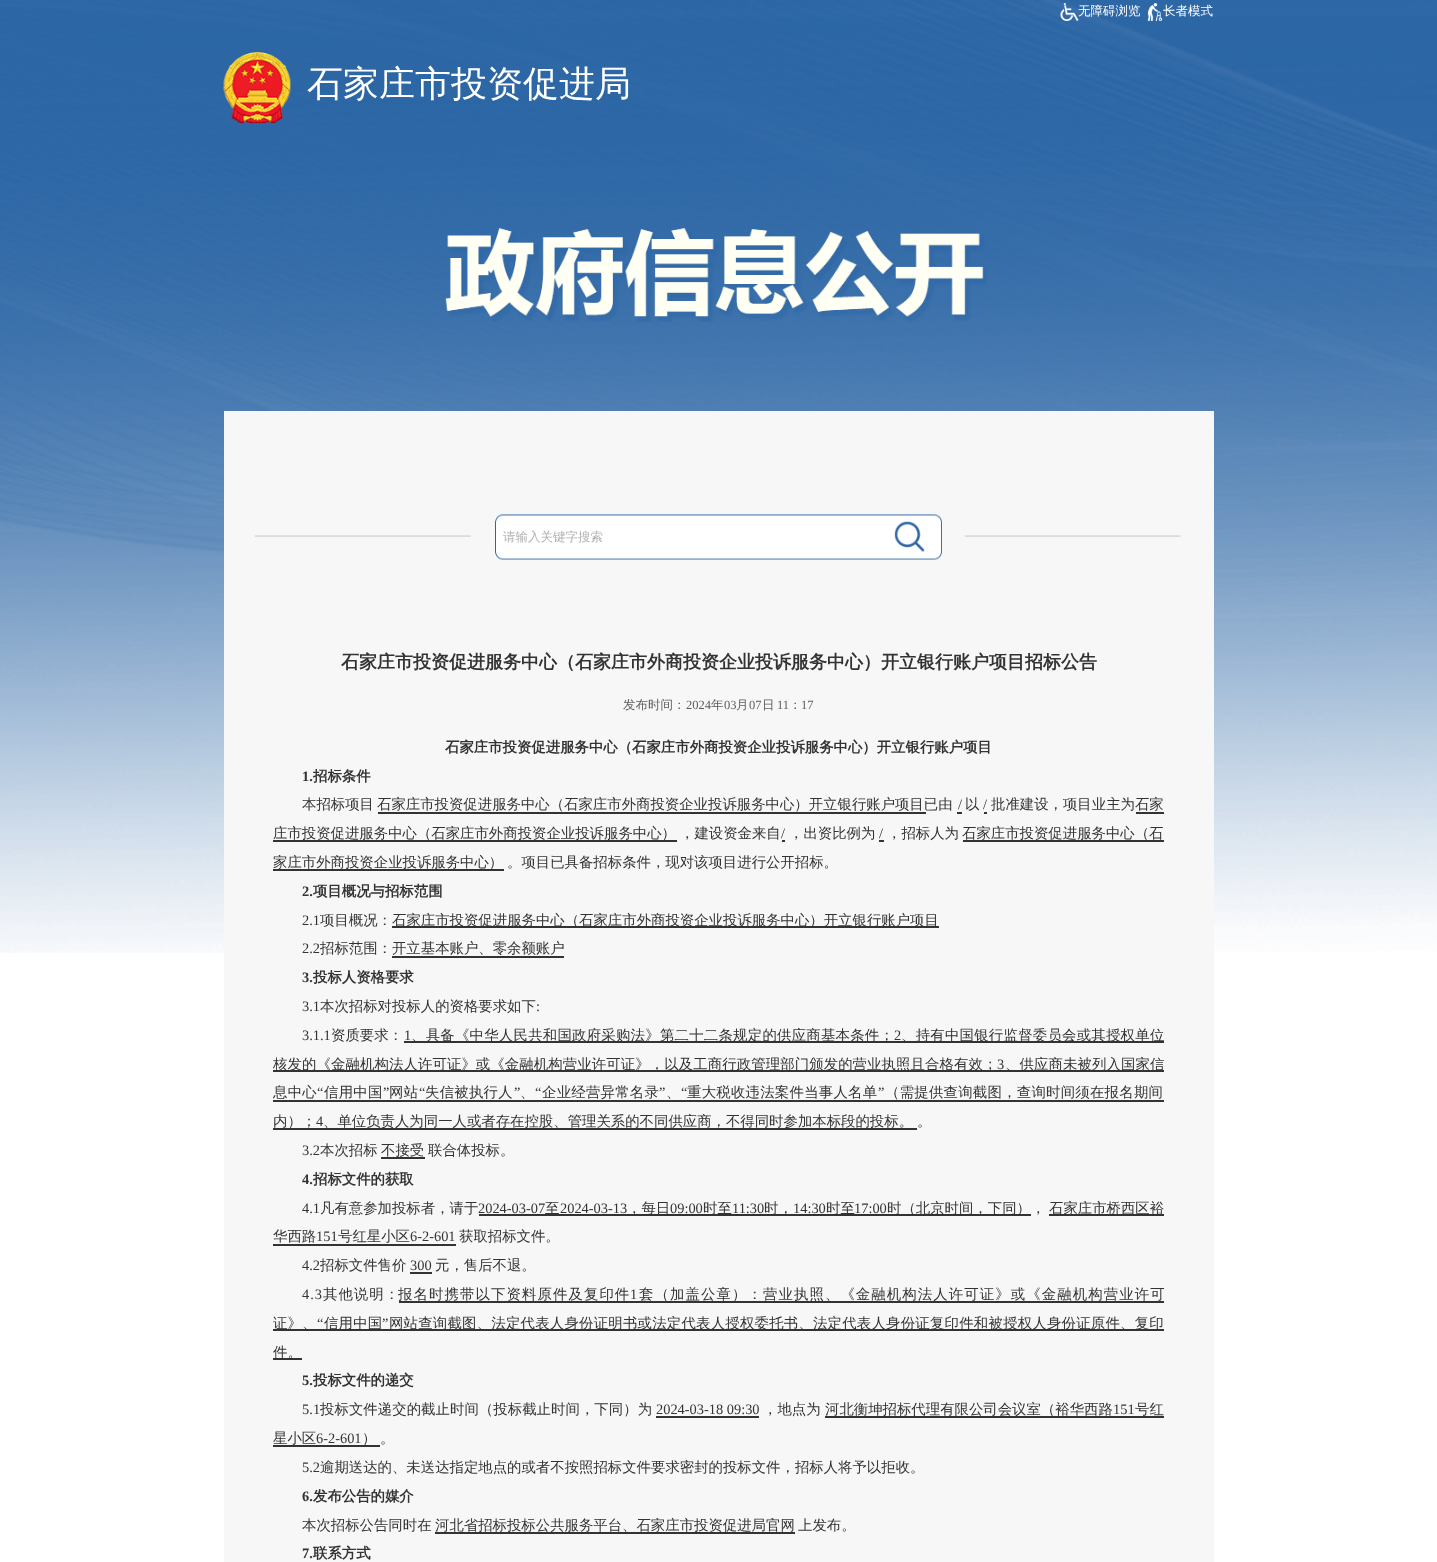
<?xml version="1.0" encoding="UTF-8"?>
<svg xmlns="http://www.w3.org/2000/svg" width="1437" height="1562">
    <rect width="100%" height="100%" fill="#FFFFFF"/>
    <image x="0" y="0" width="1437" height="953" href="img_01.png"/>
    <image x="0" y="17" width="1437" height="936" href="img_02.png"/>
    <image x="1060" y="3" width="19" height="18" href="img_03.png"/>
    <text x="1078" y="15" font-family="WenQuanYi Zen Hei" font-size="12.5" font-weight="500" fill="#FFFFFF">无障碍浏览</text>
    <image x="1147" y="3" width="16" height="18" href="img_04.png"/>
    <text x="1163" y="15" font-family="WenQuanYi Zen Hei" font-size="12.5" font-weight="500" fill="#FFFFFF">长者模式</text>
    <image x="223" y="52" width="68" height="72" href="img_05.png"/>
    <text x="307" y="96" font-family="WenQuanYi Zen Hei" font-size="36" font-weight="500" fill="#FFFFFF">石家庄市投资促进局</text>
    <image x="445" y="228" width="542" height="94" href="img_06.png"/>
    <rect x="224" y="411" width="990" height="1151" fill="#F7F7F7"/>
    <image x="255" y="535" width="926" height="2" href="img_07.png"/>
    <image x="495" y="514" width="390" height="46" href="img_08.png"/>
    <text x="503" y="541" font-family="WenQuanYi Zen Hei" font-size="12.5" font-weight="500" fill="#B2B2B2">请输入关键字搜索</text>
    <image x="885" y="514" width="57" height="46" href="img_09.png"/>
    <text x="341" y="668" font-family="WenQuanYi Zen Hei" font-size="18" font-weight="700" fill="#333333">石家庄市投资促进服务中心（石家庄市外商投资企业投诉服务中心）开立银行账户项目招标公告</text>
    <text x="623" y="709" font-family="WenQuanYi Zen Hei" font-size="12.5" font-weight="500" fill="#5D5D5D">发布时间：</text>
    <text x="686" y="709" font-family="Liberation Serif" font-size="12.5" fill="#5D5D5D">2024</text>
    <text x="711" y="709" font-family="WenQuanYi Zen Hei" font-size="12.5" font-weight="500" fill="#5D5D5D">年</text>
    <text x="724" y="709" font-family="Liberation Serif" font-size="12.5" fill="#5D5D5D">03</text>
    <text x="736" y="709" font-family="WenQuanYi Zen Hei" font-size="12.5" font-weight="500" fill="#5D5D5D">月</text>
    <text x="749" y="709" font-family="Liberation Serif" font-size="12.5" fill="#5D5D5D">07</text>
    <text x="762" y="709" font-family="WenQuanYi Zen Hei" font-size="12.5" font-weight="500" fill="#5D5D5D">日</text>
    <text x="777" y="709" font-family="Liberation Serif" font-size="12.5" fill="#5D5D5D">11</text>
    <text x="789" y="709" font-family="WenQuanYi Zen Hei" font-size="12.5" font-weight="500" fill="#5D5D5D">：</text>
    <text x="801" y="709" font-family="Liberation Serif" font-size="12.5" fill="#5D5D5D">17</text>
    <text x="445" y="752" font-family="WenQuanYi Zen Hei" font-size="14.4" font-weight="700" fill="#333333">石家庄市投资促进服务中心（石家庄市外商投资企业投诉服务中心）开立银行账户项目</text>
    <text x="302" y="781" font-family="Liberation Serif" font-size="14.4" font-weight="700" fill="#333333">1.</text>
    <text x="313" y="781" font-family="WenQuanYi Zen Hei" font-size="14.4" font-weight="700" fill="#333333">招标条件</text>
    <text x="302" y="809" font-family="WenQuanYi Zen Hei" font-size="14.4" font-weight="500" fill="#333333">本招标项目</text>
    <text x="377" y="809" font-family="WenQuanYi Zen Hei" font-size="14.4" font-weight="500" fill="#333333">石家庄市投资促进服务中心（石家庄市外商投资企业投诉服务中心）开立银行账户项目已由</text>
    <rect x="378" y="812" width="548" height="2" fill="#333333"/>
    <text x="958" y="809" font-family="Liberation Serif" font-size="14.4" fill="#333333">/</text>
    <rect x="957" y="812" width="5" height="2" fill="#333333"/>
    <text x="965" y="809" font-family="WenQuanYi Zen Hei" font-size="14.4" font-weight="500" fill="#333333">以</text>
    <text x="983" y="809" font-family="Liberation Serif" font-size="14.4" fill="#333333">/</text>
    <rect x="984" y="812" width="3" height="2" fill="#333333"/>
    <text x="991" y="809" font-family="WenQuanYi Zen Hei" font-size="14.4" font-weight="500" fill="#333333">批准建设，项目业主为石家</text>
    <rect x="273" y="840" width="404" height="2" fill="#333333"/>
    <text x="273" y="838" font-family="WenQuanYi Zen Hei" font-size="14.4" font-weight="500" fill="#333333">庄市投资促进服务中心（石家庄市外商投资企业投诉服务中心）</text>
    <rect x="1136" y="812" width="28" height="2" fill="#333333"/>
    <text x="680" y="838" font-family="WenQuanYi Zen Hei" font-size="14.4" font-weight="500" fill="#333333">，建设资金来自</text>
    <text x="781" y="838" font-family="Liberation Serif" font-size="14.4" fill="#333333">/</text>
    <rect x="782" y="840" width="3" height="2" fill="#333333"/>
    <text x="789" y="838" font-family="WenQuanYi Zen Hei" font-size="14.4" font-weight="500" fill="#333333">，出资比例为</text>
    <text x="879" y="838" font-family="Liberation Serif" font-size="14.4" fill="#333333">/</text>
    <rect x="879" y="840" width="5" height="2" fill="#333333"/>
    <text x="887" y="838" font-family="WenQuanYi Zen Hei" font-size="14.4" font-weight="500" fill="#333333">，招标人为</text>
    <rect x="963" y="840" width="201" height="2" fill="#333333"/>
    <text x="962" y="838" font-family="WenQuanYi Zen Hei" font-size="14.4" font-weight="500" fill="#333333">石家庄市投资促进服务中心（石</text>
    <rect x="273" y="869" width="231" height="2" fill="#333333"/>
    <text x="273" y="867" font-family="WenQuanYi Zen Hei" font-size="14.4" font-weight="500" fill="#333333">家庄市外商投资企业投诉服务中心）</text>
    <text x="507" y="867" font-family="WenQuanYi Zen Hei" font-size="14.4" font-weight="500" fill="#333333">。项目已具备招标条件，现对该项目进行公开招标。</text>
    <text x="302" y="896" font-family="Liberation Serif" font-size="14.4" font-weight="700" fill="#333333">2.</text>
    <text x="313" y="896" font-family="WenQuanYi Zen Hei" font-size="14.4" font-weight="700" fill="#333333">项目概况与招标范围</text>
    <text x="302" y="925" font-family="Liberation Serif" font-size="14.4" fill="#333333">2.1</text>
    <text x="320" y="925" font-family="WenQuanYi Zen Hei" font-size="14.4" font-weight="500" fill="#333333">项目概况：</text>
    <rect x="392" y="926" width="547" height="2" fill="#333333"/>
    <text x="392" y="925" font-family="WenQuanYi Zen Hei" font-size="14.4" font-weight="500" fill="#333333">石家庄市投资促进服务中心（石家庄市外商投资企业投诉服务中心）开立银行账户项目</text>
    <text x="302" y="953" font-family="Liberation Serif" font-size="14.4" fill="#333333">2.2</text>
    <text x="320" y="953" font-family="WenQuanYi Zen Hei" font-size="14.4" font-weight="500" fill="#333333">招标范围：开立基本账户、零余额账户</text>
    <rect x="392" y="956" width="172" height="2" fill="#333333"/>
    <text x="302" y="982" font-family="Liberation Serif" font-size="14.4" font-weight="700" fill="#333333">3.</text>
    <text x="313" y="982" font-family="WenQuanYi Zen Hei" font-size="14.4" font-weight="700" fill="#333333">投标人资格要求</text>
    <text x="302" y="1011" font-family="Liberation Serif" font-size="14.4" fill="#333333">3.1</text>
    <text x="320" y="1011" font-family="WenQuanYi Zen Hei" font-size="14.4" font-weight="500" fill="#333333">本次招标对投标人的资格要求如下</text>
    <text x="536" y="1011" font-family="Liberation Serif" font-size="14.4" fill="#333333">:</text>
    <text x="302" y="1040" font-family="Liberation Serif" font-size="14.4" fill="#333333">3.1.1</text>
    <text x="331" y="1040" font-family="WenQuanYi Zen Hei" font-size="14.4" font-weight="500" fill="#333333">资质要求：</text>
    <text x="404" y="1040" font-family="Liberation Serif" font-size="14.4" letter-spacing="0.25" fill="#333333">1</text>
    <rect x="404" y="1041" width="760" height="2" fill="#333333"/>
    <text x="411" y="1040" font-family="WenQuanYi Zen Hei" font-size="14.4" font-weight="500" letter-spacing="0.25" fill="#333333">、具备《中华人民共和国政府采购法》第二十二条规定的供应商基本条件；</text>
    <text x="894" y="1040" font-family="Liberation Serif" font-size="14.4" letter-spacing="0.25" fill="#333333">2</text>
    <text x="901" y="1040" font-family="WenQuanYi Zen Hei" font-size="14.4" font-weight="500" letter-spacing="0.25" fill="#333333">、持有中国银行监督委员会或其授权单位</text>
    <rect x="273" y="1070" width="891" height="2" fill="#333333"/>
    <text x="273" y="1069" font-family="WenQuanYi Zen Hei" font-size="14.4" font-weight="500" letter-spacing="0.1" fill="#333333">核发的《金融机构法人许可证》或《金融机构营业许可证》，以及工商行政管理部门颁发的营业执照且合格有效；</text>
    <text x="997" y="1069" font-family="Liberation Serif" font-size="14.4" letter-spacing="0.1" fill="#333333">3</text>
    <text x="1005" y="1069" font-family="WenQuanYi Zen Hei" font-size="14.4" font-weight="500" letter-spacing="0.1" fill="#333333">、供应商未被列入国家信</text>
    <text x="273" y="1097" font-family="WenQuanYi Zen Hei" font-size="14.4" font-weight="500" letter-spacing="0.25" fill="#333333">息中心</text>
    <text x="317" y="1097" font-family="Liberation Serif" font-size="14.4" letter-spacing="0.25" fill="#333333">“</text>
    <text x="324" y="1097" font-family="WenQuanYi Zen Hei" font-size="14.4" font-weight="500" letter-spacing="0.25" fill="#333333">信用中国</text>
    <text x="383" y="1097" font-family="Liberation Serif" font-size="14.4" letter-spacing="0.25" fill="#333333">”</text>
    <text x="389" y="1097" font-family="WenQuanYi Zen Hei" font-size="14.4" font-weight="500" letter-spacing="0.25" fill="#333333">网站</text>
    <text x="419" y="1097" font-family="Liberation Serif" font-size="14.4" letter-spacing="0.25" fill="#333333">“</text>
    <text x="425" y="1097" font-family="WenQuanYi Zen Hei" font-size="14.4" font-weight="500" letter-spacing="0.25" fill="#333333">失信被执行人</text>
    <text x="514" y="1097" font-family="Liberation Serif" font-size="14.4" letter-spacing="0.25" fill="#333333">”</text>
    <text x="535" y="1097" font-family="Liberation Serif" font-size="14.4" letter-spacing="0.25" fill="#333333">“</text>
    <text x="542" y="1097" font-family="WenQuanYi Zen Hei" font-size="14.4" font-weight="500" letter-spacing="0.25" fill="#333333">企业经营异常名录</text>
    <text x="659" y="1097" font-family="Liberation Serif" font-size="14.4" letter-spacing="0.25" fill="#333333">”</text>
    <text x="681" y="1097" font-family="Liberation Serif" font-size="14.4" letter-spacing="0.25" fill="#333333">“</text>
    <text x="687" y="1097" font-family="WenQuanYi Zen Hei" font-size="14.4" font-weight="500" letter-spacing="0.25" fill="#333333">重大税收违法案件当事人名单</text>
    <text x="878" y="1097" font-family="Liberation Serif" font-size="14.4" letter-spacing="0.25" fill="#333333">”</text>
    <text x="885" y="1097" font-family="WenQuanYi Zen Hei" font-size="14.4" font-weight="500" letter-spacing="0.25" fill="#333333">（需提供查询截图，查询时间须在报名期间</text>
    <text x="520" y="1097" font-family="WenQuanYi Zen Hei" font-size="14.4" font-weight="500" letter-spacing="0.25" fill="#333333">、</text>
    <rect x="273" y="1100" width="891" height="2" fill="#333333"/>
    <text x="666" y="1097" font-family="WenQuanYi Zen Hei" font-size="14.4" font-weight="500" letter-spacing="0.25" fill="#333333">、</text>
    <rect x="273" y="1128" width="644" height="2" fill="#333333"/>
    <text x="273" y="1126" font-family="WenQuanYi Zen Hei" font-size="14.4" font-weight="500" fill="#333333">内）；</text>
    <text x="316" y="1126" font-family="Liberation Serif" font-size="14.4" fill="#333333">4</text>
    <text x="323" y="1126" font-family="WenQuanYi Zen Hei" font-size="14.4" font-weight="500" fill="#333333">、单位负责人为同一人或者存在控股、管理关系的不同供应商，不得同时参加本标段的投标。</text>
    <text x="917" y="1126" font-family="WenQuanYi Zen Hei" font-size="14.4" font-weight="500" fill="#333333">。</text>
    <text x="302" y="1155" font-family="Liberation Serif" font-size="14.4" fill="#333333">3.2</text>
    <text x="320" y="1155" font-family="WenQuanYi Zen Hei" font-size="14.4" font-weight="500" fill="#333333">本次招标</text>
    <text x="381" y="1155" font-family="WenQuanYi Zen Hei" font-size="14.4" font-weight="500" fill="#333333">不接受</text>
    <rect x="381" y="1157" width="44" height="2" fill="#333333"/>
    <text x="428" y="1155" font-family="WenQuanYi Zen Hei" font-size="14.4" font-weight="500" fill="#333333">联合体投标。</text>
    <text x="302" y="1184" font-family="Liberation Serif" font-size="14.4" font-weight="700" fill="#333333">4.</text>
    <text x="313" y="1184" font-family="WenQuanYi Zen Hei" font-size="14.4" font-weight="700" fill="#333333">招标文件的获取</text>
    <text x="302" y="1213" font-family="Liberation Serif" font-size="14.4" fill="#333333">4.1</text>
    <text x="320" y="1213" font-family="WenQuanYi Zen Hei" font-size="14.4" font-weight="500" fill="#333333">凡有意参加投标者，请于</text>
    <text x="478" y="1213" font-family="Liberation Serif" font-size="14.4" fill="#333333">2024-03-07</text>
    <rect x="479" y="1214" width="552" height="2" fill="#333333"/>
    <text x="545" y="1213" font-family="WenQuanYi Zen Hei" font-size="14.4" font-weight="500" fill="#333333">至</text>
    <text x="560" y="1213" font-family="Liberation Serif" font-size="14.4" fill="#333333">2024-03-13</text>
    <text x="627" y="1213" font-family="WenQuanYi Zen Hei" font-size="14.4" font-weight="500" fill="#333333">，每日</text>
    <text x="670" y="1213" font-family="Liberation Serif" font-size="14.4" fill="#333333">09:00</text>
    <text x="703" y="1213" font-family="WenQuanYi Zen Hei" font-size="14.4" font-weight="500" fill="#333333">时至</text>
    <text x="732" y="1213" font-family="Liberation Serif" font-size="14.4" fill="#333333">11:30</text>
    <text x="764" y="1213" font-family="WenQuanYi Zen Hei" font-size="14.4" font-weight="500" fill="#333333">时，</text>
    <text x="793" y="1213" font-family="Liberation Serif" font-size="14.4" fill="#333333">14:30</text>
    <text x="826" y="1213" font-family="WenQuanYi Zen Hei" font-size="14.4" font-weight="500" fill="#333333">时至</text>
    <text x="854" y="1213" font-family="Liberation Serif" font-size="14.4" fill="#333333">17:00</text>
    <text x="887" y="1213" font-family="WenQuanYi Zen Hei" font-size="14.4" font-weight="500" fill="#333333">时（北京时间，下同）</text>
    <text x="1031" y="1213" font-family="WenQuanYi Zen Hei" font-size="14.4" font-weight="500" fill="#333333">，</text>
    <rect x="1049" y="1214" width="115" height="2" fill="#333333"/>
    <text x="1049" y="1213" font-family="WenQuanYi Zen Hei" font-size="14.4" font-weight="500" fill="#333333">石家庄市桥西区裕</text>
    <text x="273" y="1241" font-family="WenQuanYi Zen Hei" font-size="14.4" font-weight="500" fill="#333333">华西路</text>
    <text x="316" y="1241" font-family="Liberation Serif" font-size="14.4" fill="#333333">151</text>
    <rect x="273" y="1244" width="183" height="2" fill="#333333"/>
    <text x="338" y="1241" font-family="WenQuanYi Zen Hei" font-size="14.4" font-weight="500" fill="#333333">号红星小区</text>
    <text x="410" y="1241" font-family="Liberation Serif" font-size="14.4" fill="#333333">6-2-601</text>
    <text x="459" y="1241" font-family="WenQuanYi Zen Hei" font-size="14.4" font-weight="500" fill="#333333">获取招标文件。</text>
    <text x="302" y="1270" font-family="Liberation Serif" font-size="14.4" fill="#333333">4.2</text>
    <text x="320" y="1270" font-family="WenQuanYi Zen Hei" font-size="14.4" font-weight="500" fill="#333333">招标文件售价</text>
    <text x="410" y="1270" font-family="Liberation Serif" font-size="14.4" fill="#333333">300</text>
    <rect x="410" y="1272" width="22" height="2" fill="#333333"/>
    <text x="435" y="1270" font-family="WenQuanYi Zen Hei" font-size="14.4" font-weight="500" fill="#333333">元，售后不退。</text>
    <text x="302" y="1299" font-family="Liberation Serif" font-size="14.4" letter-spacing="1" fill="#333333">4.3</text>
    <text x="323" y="1299" font-family="WenQuanYi Zen Hei" font-size="14.4" font-weight="500" letter-spacing="1" fill="#333333">其他说明：</text>
    <text x="398" y="1299" font-family="WenQuanYi Zen Hei" font-size="14.4" font-weight="500" letter-spacing="1.1" fill="#333333">报名时携带以下资料原件及复印件</text>
    <text x="630" y="1299" font-family="Liberation Serif" font-size="14.4" letter-spacing="1.1" fill="#333333">1</text>
    <rect x="399" y="1301" width="765" height="2" fill="#333333"/>
    <text x="639" y="1299" font-family="WenQuanYi Zen Hei" font-size="14.4" font-weight="500" letter-spacing="1.1" fill="#333333">套（加盖公章）：营业执照、《金融机构法人许可证》或《金融机构营业许可</text>
    <rect x="273" y="1329" width="891" height="2" fill="#333333"/>
    <text x="273" y="1328" font-family="WenQuanYi Zen Hei" font-size="14.4" font-weight="500" letter-spacing="0.23" fill="#333333">证》、</text>
    <text x="317" y="1328" font-family="Liberation Serif" font-size="14.4" letter-spacing="0.23" fill="#333333">“</text>
    <text x="324" y="1328" font-family="WenQuanYi Zen Hei" font-size="14.4" font-weight="500" letter-spacing="0.23" fill="#333333">信用中国</text>
    <text x="382" y="1328" font-family="Liberation Serif" font-size="14.4" letter-spacing="0.23" fill="#333333">”</text>
    <text x="389" y="1328" font-family="WenQuanYi Zen Hei" font-size="14.4" font-weight="500" letter-spacing="0.23" fill="#333333">网站查询截图、法定代表人身份证明书或法定代表人授权委托书、法定代表人身份证复印件和被授权人身份证原件、复印</text>
    <rect x="273" y="1358" width="29" height="2" fill="#333333"/>
    <text x="273" y="1357" font-family="WenQuanYi Zen Hei" font-size="14.4" font-weight="500" fill="#333333">件。</text>
    <text x="302" y="1385" font-family="Liberation Serif" font-size="14.4" font-weight="700" fill="#333333">5.</text>
    <text x="313" y="1385" font-family="WenQuanYi Zen Hei" font-size="14.4" font-weight="700" fill="#333333">投标文件的递交</text>
    <text x="302" y="1414" font-family="Liberation Serif" font-size="14.4" letter-spacing="0.05" fill="#333333">5.1</text>
    <text x="320" y="1414" font-family="WenQuanYi Zen Hei" font-size="14.4" font-weight="500" letter-spacing="0.05" fill="#333333">投标文件递交的截止时间（投标截止时间，下同）为</text>
    <text x="656" y="1414" font-family="Liberation Serif" font-size="14.4" fill="#333333">2024-03-18 09:30</text>
    <rect x="656" y="1416" width="103" height="2" fill="#333333"/>
    <text x="763" y="1414" font-family="WenQuanYi Zen Hei" font-size="14.4" font-weight="500" fill="#333333">，地点为</text>
    <rect x="825" y="1416" width="339" height="2" fill="#333333"/>
    <text x="825" y="1414" font-family="WenQuanYi Zen Hei" font-size="14.4" font-weight="500" fill="#333333">河北衡坤招标代理有限公司会议室（裕华西路</text>
    <text x="1113" y="1414" font-family="Liberation Serif" font-size="14.4" fill="#333333">151</text>
    <text x="1135" y="1414" font-family="WenQuanYi Zen Hei" font-size="14.4" font-weight="500" fill="#333333">号红</text>
    <text x="273" y="1443" font-family="WenQuanYi Zen Hei" font-size="14.4" font-weight="500" fill="#333333">星小区</text>
    <text x="316" y="1443" font-family="Liberation Serif" font-size="14.4" fill="#333333">6-2-601</text>
    <rect x="273" y="1445" width="107" height="2" fill="#333333"/>
    <text x="362" y="1443" font-family="WenQuanYi Zen Hei" font-size="14.4" font-weight="500" fill="#333333">）</text>
    <text x="380" y="1443" font-family="WenQuanYi Zen Hei" font-size="14.4" font-weight="500" fill="#333333">。</text>
    <text x="302" y="1472" font-family="Liberation Serif" font-size="14.4" fill="#333333">5.2</text>
    <text x="320" y="1472" font-family="WenQuanYi Zen Hei" font-size="14.4" font-weight="500" fill="#333333">逾期送达的、未送达指定地点的或者不按照招标文件要求密封的投标文件，招标人将予以拒收。</text>
    <text x="302" y="1501" font-family="Liberation Serif" font-size="14.4" font-weight="700" fill="#333333">6.</text>
    <text x="313" y="1501" font-family="WenQuanYi Zen Hei" font-size="14.4" font-weight="700" fill="#333333">发布公告的媒介</text>
    <text x="302" y="1530" font-family="WenQuanYi Zen Hei" font-size="14.4" font-weight="500" fill="#333333">本次招标公告同时在</text>
    <rect x="435" y="1532" width="360" height="2" fill="#333333"/>
    <text x="435" y="1530" font-family="WenQuanYi Zen Hei" font-size="14.4" font-weight="500" fill="#333333">河北省招标投标公共服务平台、石家庄市投资促进局官网</text>
    <text x="798" y="1530" font-family="WenQuanYi Zen Hei" font-size="14.4" font-weight="500" fill="#333333">上发布。</text>
    <text x="302" y="1558" font-family="Liberation Serif" font-size="14.4" font-weight="700" fill="#333333">7.</text>
    <text x="313" y="1558" font-family="WenQuanYi Zen Hei" font-size="14.4" font-weight="700" fill="#333333">联系方式</text>
</svg>
